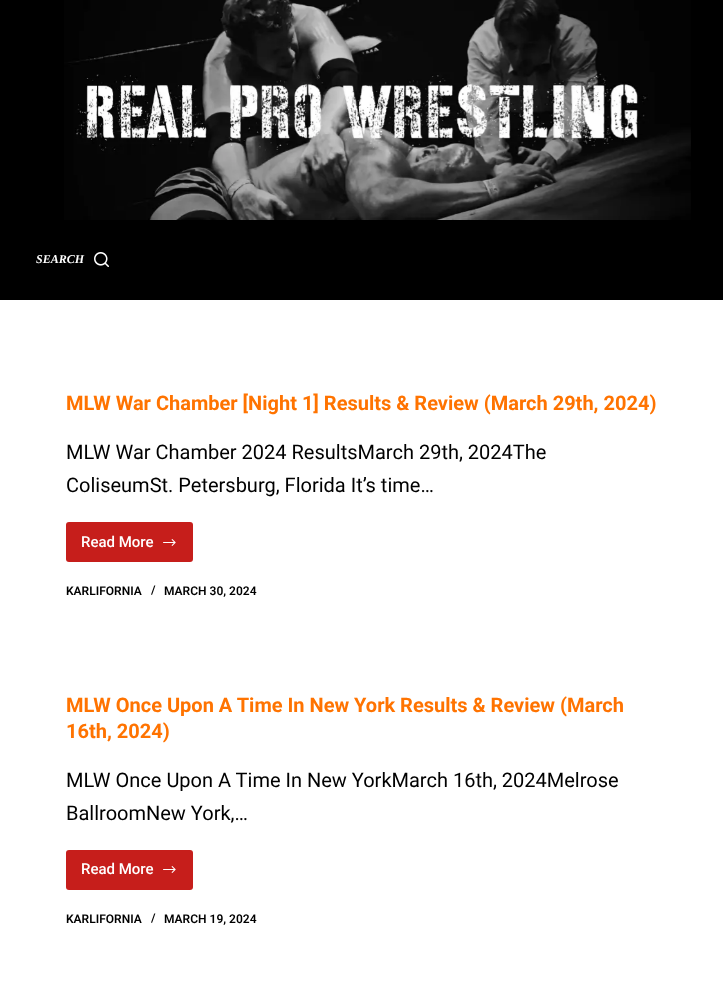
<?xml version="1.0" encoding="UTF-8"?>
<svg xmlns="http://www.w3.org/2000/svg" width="723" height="1008">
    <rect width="100%" height="100%" fill="#FFFFFF"/>
    <rect x="0" y="0" width="723" height="300" fill="#000000"/>
    <image x="64" y="0" width="627" height="220" href="img_01.png"/>
    <text x="36" y="263" font-family="Liberation Serif" font-size="12" font-weight="700" font-style="italic" fill="#FFFFFF">SEARCH</text>
    <image x="94" y="252" width="15" height="15" href="img_02.png"/>
    <text x="66" y="410" font-family="Roboto" font-size="20" font-weight="700" fill="#FF7300">MLW War Chamber [Night 1] Results &amp; Review (March 29th, 2024)</text>
    <text font-family="Roboto" font-size="20" fill="#000000">
        <tspan x="66" y="459">MLW War Chamber 2024 ResultsMarch 29th, 2024The</tspan>
        <tspan x="66" y="492">ColiseumSt. Petersburg, Florida It’s time…</tspan>
    </text>
    <rect x="66" y="522" width="127" height="40" rx="3" fill="#C61E1B"/>
    <text x="81" y="547" font-family="Roboto" font-size="15" font-weight="500" fill="#FFFFFF">Read More</text>
    <image x="163" y="539" width="13" height="7" href="img_03.png"/>
    <text x="66" y="595" font-family="Roboto" font-size="12" font-weight="600" fill="#000000">KARLIFORNIA</text>
    <text x="151" y="594" font-family="Roboto" font-size="12" font-weight="600" fill="#000000">/</text>
    <text x="164" y="595" font-family="Roboto" font-size="12" font-weight="600" fill="#000000">MARCH 30, 2024</text>
    <text font-family="Roboto" font-size="20" font-weight="700" fill="#FF7300">
        <tspan x="66" y="712">MLW Once Upon A Time In New York Results &amp; Review (March</tspan>
        <tspan x="66" y="738">16th, 2024)</tspan>
    </text>
    <text font-family="Roboto" font-size="20" fill="#000000">
        <tspan x="66" y="787">MLW Once Upon A Time In New YorkMarch 16th, 2024Melrose</tspan>
        <tspan x="66" y="820">BallroomNew York,…</tspan>
    </text>
    <rect x="66" y="850" width="127" height="40" rx="3" fill="#C61E1B"/>
    <text x="81" y="874" font-family="Roboto" font-size="15" font-weight="500" fill="#FFFFFF">Read More</text>
    <image x="163" y="866" width="13" height="7" href="img_03.png"/>
    <text x="66" y="923" font-family="Roboto" font-size="12" font-weight="600" fill="#000000">KARLIFORNIA</text>
    <text x="151" y="922" font-family="Roboto" font-size="12" font-weight="600" fill="#000000">/</text>
    <text x="164" y="923" font-family="Roboto" font-size="12" font-weight="600" fill="#000000">MARCH 19, 2024</text>
</svg>
